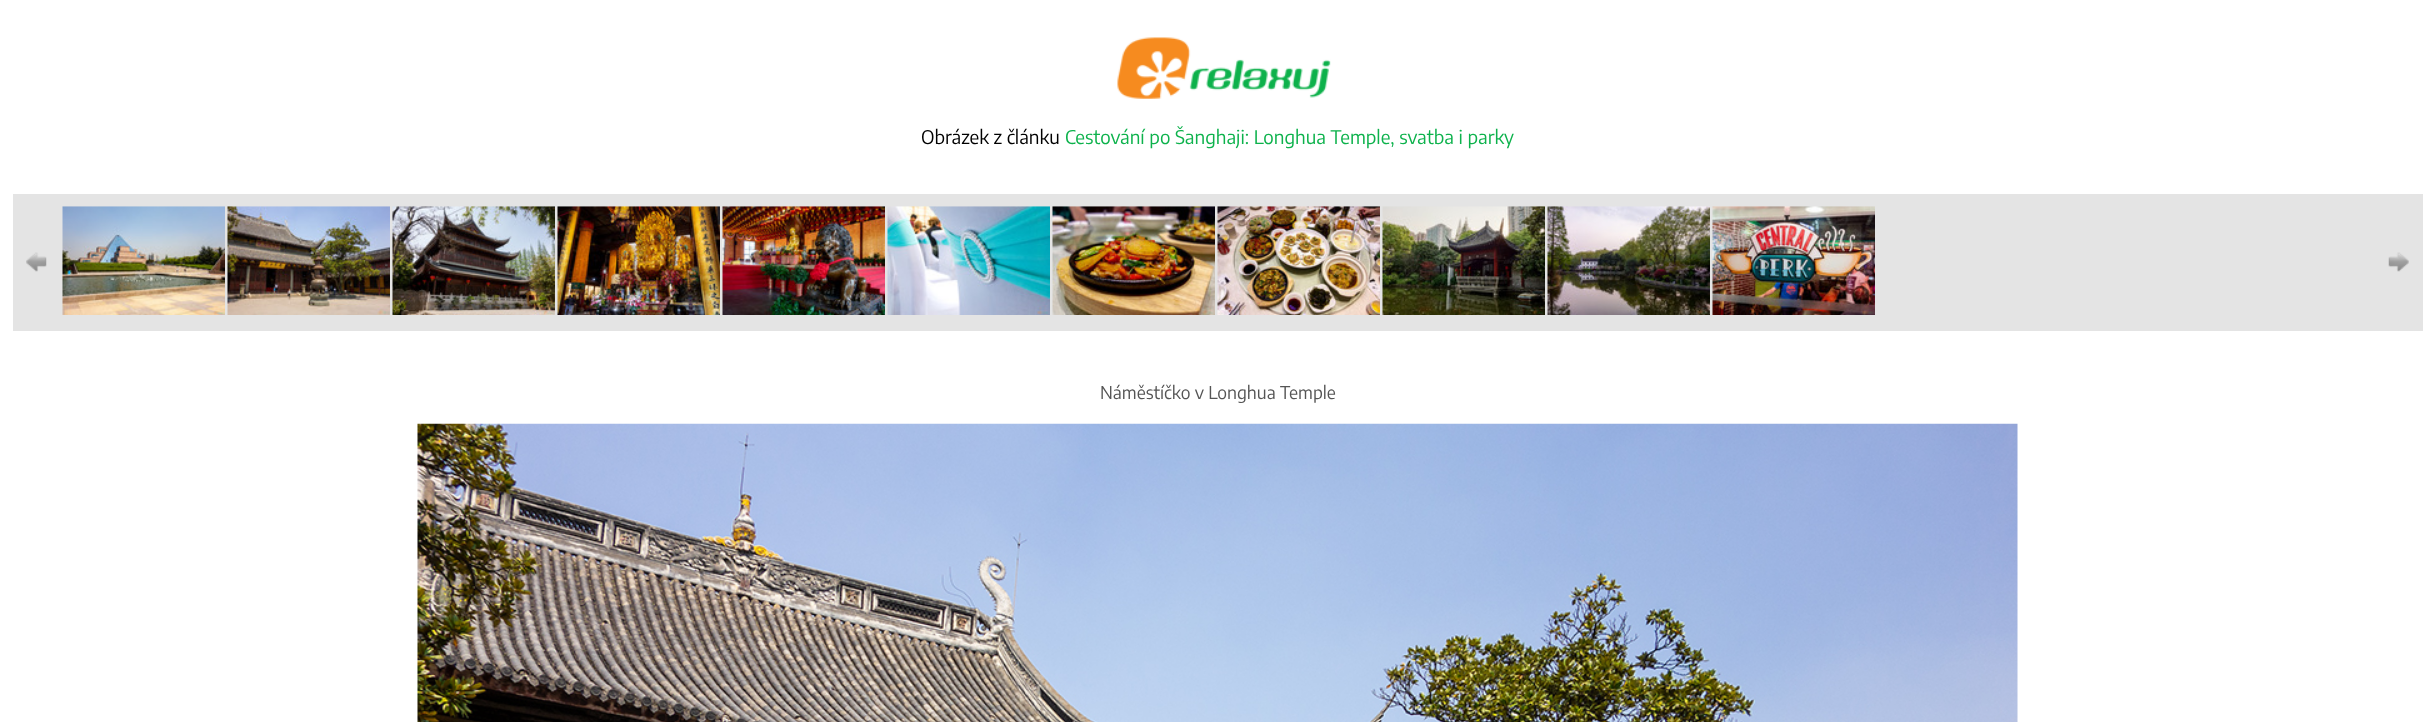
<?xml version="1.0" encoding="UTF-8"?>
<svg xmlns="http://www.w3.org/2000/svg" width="2434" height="722">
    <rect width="100%" height="100%" fill="#FFFFFF"/>
    <image x="1117" y="37" width="214" height="62" href="img_01.png"/>
    <text x="921" y="144" font-family="Encode Sans Condensed" font-size="18.75" fill="#000000">Obrázek z článku</text>
    <text x="1065" y="144" font-family="Encode Sans Condensed" font-size="18.75" fill="#0DB24C">Cestování po Šanghaji: Longhua Temple, svatba i parky</text>
    <rect x="13" y="194" width="2410" height="137" fill="#E4E4E4"/>
    <image x="26" y="252" width="21" height="20" href="img_02.png"/>
    <image x="62" y="206" width="163" height="109" href="img_03.png"/>
    <image x="227" y="206" width="163" height="109" href="img_04.png"/>
    <image x="392" y="206" width="163" height="109" href="img_05.png"/>
    <image x="557" y="206" width="163" height="109" href="img_06.png"/>
    <image x="722" y="206" width="163" height="109" href="img_07.png"/>
    <image x="887" y="206" width="163" height="109" href="img_08.png"/>
    <image x="1052" y="206" width="163" height="109" href="img_09.png"/>
    <image x="1217" y="206" width="163" height="109" href="img_10.png"/>
    <image x="1382" y="206" width="163" height="109" href="img_11.png"/>
    <image x="1547" y="206" width="163" height="109" href="img_12.png"/>
    <image x="1712" y="206" width="163" height="109" href="img_13.png"/>
    <image x="2388" y="252" width="21" height="20" href="img_14.png"/>
    <text x="1100" y="399" font-family="Encode Sans Condensed" font-size="17.5" fill="#555555">Náměstíčko v Longhua Temple</text>
    <image x="417" y="423" width="1601" height="299" href="img_15.png"/>
</svg>
